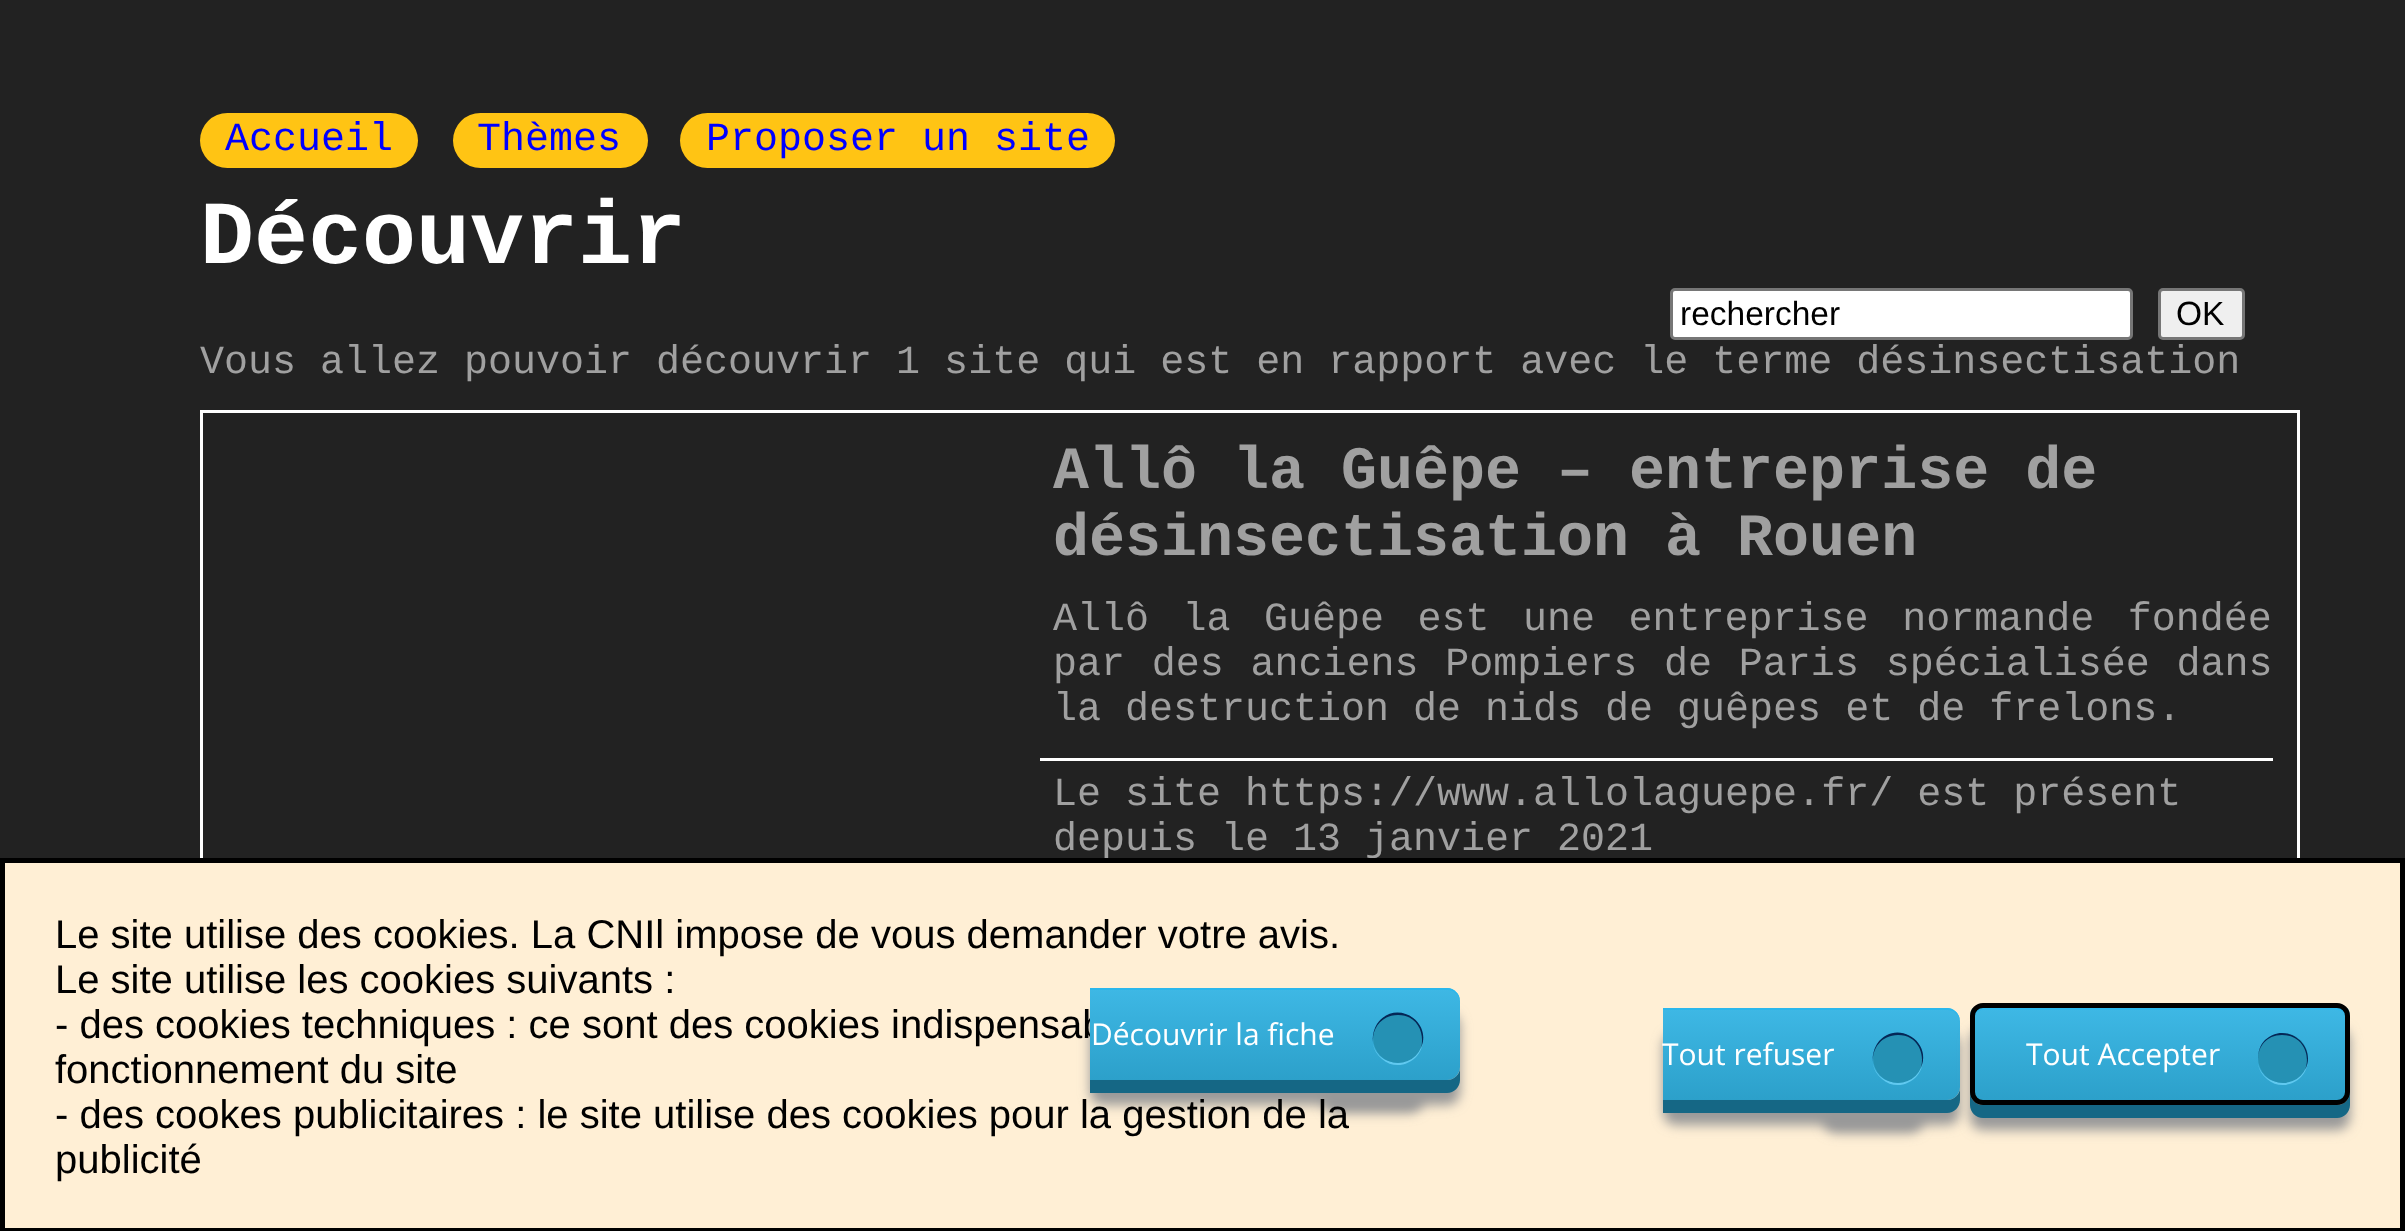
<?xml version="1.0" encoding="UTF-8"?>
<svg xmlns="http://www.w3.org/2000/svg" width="2405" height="1231">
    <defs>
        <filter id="blur1" x="-50%" y="-200%" width="200%" height="500%"><feGaussianBlur stdDeviation="6"/></filter>
        <linearGradient id="g1" gradientUnits="userSpaceOnUse" x1="1090" y1="1080" x2="1090" y2="988"><stop offset="0" stop-color="#2CA0CA"/><stop offset="1" stop-color="#3EB8E5"/></linearGradient>
        <linearGradient id="g2" gradientUnits="userSpaceOnUse" x1="1663" y1="1100" x2="1663" y2="1008"><stop offset="0" stop-color="#2CA0CA"/><stop offset="1" stop-color="#3EB8E5"/></linearGradient>
        <clipPath id="clip1"><rect x="1970" y="1003" width="380" height="102" rx="13"/></clipPath>
        <linearGradient id="g3" gradientUnits="userSpaceOnUse" x1="1975" y1="1100" x2="1975" y2="1008"><stop offset="0" stop-color="#2CA0CA"/><stop offset="1" stop-color="#3EB8E5"/></linearGradient>
    </defs>
    <rect width="100%" height="100%" fill="#222222"/>
    <rect x="200" y="113" width="218" height="55" rx="27.5" fill="#FFC414"/>
    <text x="225" y="150" font-family="Liberation Mono" font-size="40" fill="#0000FF">Accueil</text>
    <rect x="453" y="113" width="195" height="55" rx="27.5" fill="#FFC414"/>
    <text x="477" y="150" font-family="Liberation Mono" font-size="40" fill="#0000FF">Thèmes</text>
    <rect x="680" y="113" width="435" height="55" rx="27.5" fill="#FFC414"/>
    <text x="706" y="150" font-family="Liberation Mono" font-size="40" fill="#0000FF">Proposer un site</text>
    <text x="200" y="263" font-family="Liberation Mono" font-size="90" font-weight="700" fill="#FFFFFF">Découvrir</text>
    <rect x="1671.5" y="289.5" width="460" height="49" rx="3.5" fill="#FFFFFF" stroke="#767676" stroke-width="3"/>
    <text x="1680" y="325" font-family="Liberation Sans" font-size="33.5" fill="#000000">rechercher</text>
    <rect x="2159.5" y="289.5" width="84" height="49" rx="3.5" fill="#EFEFEF" stroke="#767676" stroke-width="3"/>
    <text x="2176" y="325" font-family="Liberation Sans" font-size="33.5" fill="#000000">OK</text>
    <text x="200" y="373" font-family="Liberation Mono" font-size="40" fill="#A0A0A0">Vous allez pouvoir découvrir 1 site qui est en rapport avec le terme désinsectisation</text>
    <rect x="201.5" y="411.5" width="2097" height="720" fill="none" stroke="#FFFFFF" stroke-width="3"/>
    <text font-family="Liberation Mono" font-size="60" font-weight="700" fill="#A0A0A0">
        <tspan x="1053" y="488">Allô la Guêpe – entreprise de</tspan>
        <tspan x="1053" y="555">désinsectisation à Rouen</tspan>
    </text>
    <text font-family="Liberation Mono" font-size="40" fill="#A0A0A0">
        <tspan x="1053" y="630" word-spacing="9.5">Allô la Guêpe est une entreprise normande fondée</tspan>
        <tspan x="1053" y="675" word-spacing="2.75">par des anciens Pompiers de Paris spécialisée dans</tspan>
        <tspan x="1053" y="720">la destruction de nids de guêpes et de frelons.</tspan>
    </text>
    <rect x="1040" y="758" width="1233" height="3" fill="#FFFFFF"/>
    <text font-family="Liberation Mono" font-size="40" fill="#A0A0A0">
        <tspan x="1053" y="805">Le site https://www.allolaguepe.fr/ est présent</tspan>
        <tspan x="1053" y="850">depuis le 13 janvier 2021</tspan>
    </text>
    <rect x="2.5" y="860.5" width="2400" height="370" fill="#FFEFD5" stroke="#000000" stroke-width="5"/>
    <rect x="1323" y="1013" width="100" height="100" rx="13" fill="#999999" filter="url(#blur1)"/>
    <rect x="1090" y="1013" width="370" height="92" rx="13" fill="#999999" filter="url(#blur1)"/>
    <path d="M 1090 1080 V 1093 H 1447 C 1454 1093 1460 1087 1460 1080 V 1068 C 1460 1074 1454 1080 1448 1080 Z" fill="#156785"/>
    <text x="55" y="1038" font-family="Liberation Sans" font-size="40" fill="#000000">- des cookies techniques : ce sont des cookies indispensab</text>
    <path d="M 1090 988 H 1447 C 1454 988 1460 994 1460 1001 V 1067 C 1460 1074 1454 1080 1447 1080 H 1090 Z" fill="url(#g1)"/>
    <path d="M 1090 990 H 1448 C 1454 990 1460 996 1460 1002 V 1001 C 1460 994 1454 988 1447 988 H 1090 Z" fill="#2AB7EC"/>
    <text x="1091" y="1045" font-family="Open Sans" font-size="30" fill="#FFFFFF">Découvrir la fiche</text>
    <path d="M 1373 1044 C 1374 1050 1377 1055 1382 1059 C 1400 1075 1428 1057 1422 1034 C 1427 1065 1381 1074 1373 1044 Z" fill="#60C9F0"/>
    <circle cx="1398" cy="1038" r="25" fill="#2591B4"/>
    <path d="M 1398 1015 C 1418 1015 1425 1034 1421 1048 C 1433 1021 1395 998 1377 1024 C 1374 1029 1372 1036 1373 1042 C 1372 1029 1381 1015 1398 1015 Z" fill="#052756"/>
    <text font-family="Liberation Sans" font-size="40" fill="#000000">
        <tspan x="55" y="948">Le site utilise des cookies. La CNIl impose de vous demander votre avis.</tspan>
        <tspan x="55" y="993">Le site utilise les cookies suivants :</tspan>
    </text>
    <text font-family="Liberation Sans" font-size="40" fill="#000000">
        <tspan x="55" y="1083">fonctionnement du site</tspan>
        <tspan x="55" y="1128">- des cookes publicitaires : le site utilise des cookies pour la gestion de la</tspan>
        <tspan x="55" y="1173">publicité</tspan>
    </text>
    <rect x="1823" y="1033" width="100" height="100" rx="13" fill="#999999" filter="url(#blur1)"/>
    <rect x="1663" y="1033" width="297" height="92" rx="13" fill="#999999" filter="url(#blur1)"/>
    <path d="M 1663 1100 V 1113 H 1947 C 1954 1113 1960 1107 1960 1100 V 1088 C 1960 1094 1954 1100 1948 1100 Z" fill="#156785"/>
    <path d="M 1663 1008 H 1947 C 1954 1008 1960 1014 1960 1021 V 1087 C 1960 1094 1954 1100 1947 1100 H 1663 Z" fill="url(#g2)"/>
    <path d="M 1663 1008 V 1010 H 1948 C 1954 1010 1960 1016 1960 1022 C 1960 1015 1955 1008 1947 1008 Z" fill="#2AB7EC"/>
    <text x="1662" y="1065" font-family="Open Sans" font-size="30" fill="#FFFFFF">Tout refuser</text>
    <path d="M 1873 1064 C 1874 1070 1877 1075 1882 1079 C 1900 1095 1928 1077 1922 1054 C 1927 1085 1881 1094 1873 1064 Z" fill="#60C9F0"/>
    <circle cx="1898" cy="1058" r="25" fill="#2591B4"/>
    <path d="M 1898 1035 C 1918 1035 1925 1054 1921 1068 C 1933 1041 1895 1018 1877 1044 C 1874 1049 1872 1056 1873 1062 C 1872 1049 1881 1035 1898 1035 Z" fill="#052756"/>
    <rect x="1970" y="1028" width="380" height="102" rx="13" fill="#999999" filter="url(#blur1)"/>
    <path d="M 1970 1092 V 1105 C 1970 1112 1976 1118 1983 1118 H 2337 C 2344 1118 2350 1112 2350 1105 V 1092 C 2350 1099 2344 1105 2338 1105 H 1982 C 1976 1105 1970 1099 1970 1092 Z" fill="#156785"/>
    <g clip-path="url(#clip1)">
        <rect x="1970" y="1008" width="380" height="92" fill="url(#g3)"/>
    </g>
    <path d="M 1982 1010 H 2338 C 2342 1010 2345 1013 2345 1018 C 2345 1013 2343 1008 2337 1008 H 1981 C 1976 1009 1975 1014 1975 1018 C 1975 1013 1978 1010 1982 1010 Z" fill="#2AB7EC"/>
    <rect x="1972.5" y="1005.5" width="375" height="97" rx="10.5" fill="none" stroke="#000000" stroke-width="5"/>
    <text x="2026" y="1065" font-family="Open Sans" font-size="30" fill="#FFFFFF">Tout Accepter</text>
    <path d="M 2258 1064 C 2259 1070 2262 1075 2267 1079 C 2285 1095 2313 1077 2307 1054 C 2312 1085 2266 1094 2258 1064 Z" fill="#60C9F0"/>
    <circle cx="2283" cy="1058" r="25" fill="#2591B4"/>
    <path d="M 2282 1035 C 2303 1035 2311 1055 2305 1070 C 2318 1046 2286 1020 2265 1040 C 2260 1045 2258 1052 2258 1059 C 2258 1047 2266 1035 2282 1035 Z" fill="#052756"/>
</svg>
